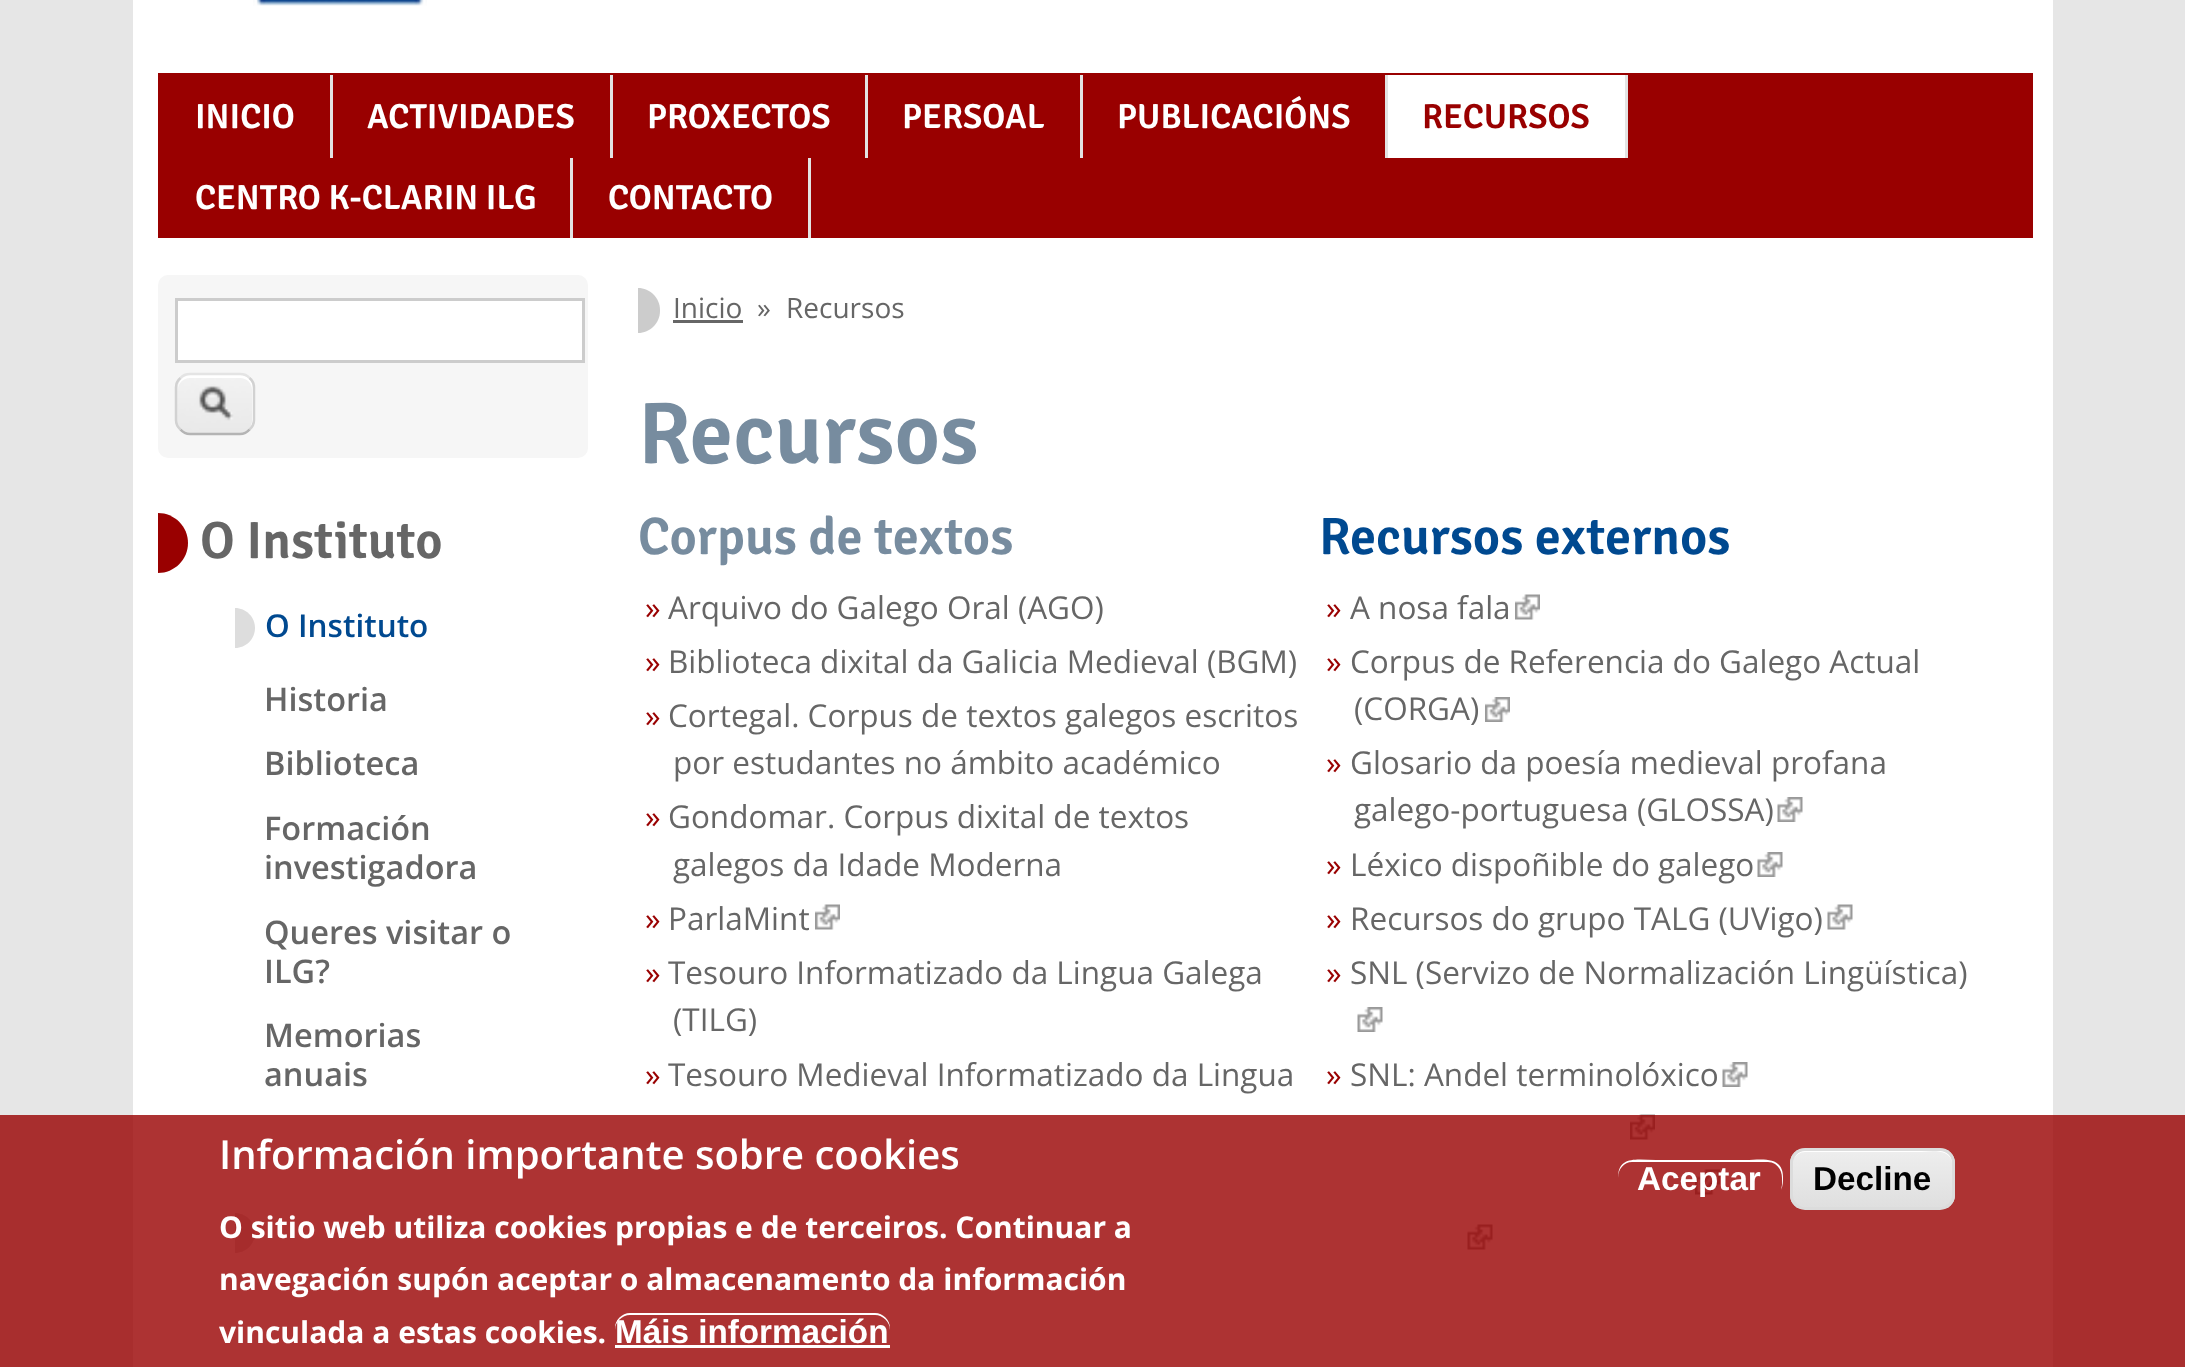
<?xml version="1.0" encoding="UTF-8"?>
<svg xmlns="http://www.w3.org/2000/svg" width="2185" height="1367">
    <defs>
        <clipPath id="clip1"><rect x="1790" y="1148" width="165" height="62" rx="15"/></clipPath>
        <linearGradient id="g1" gradientUnits="userSpaceOnUse" x1="1873" y1="1150" x2="1873" y2="1208"><stop offset="0.05" stop-color="#EDEDED"/><stop offset="1" stop-color="#DFDFDF"/></linearGradient>
    </defs>
    <rect width="100%" height="100%" fill="#E6E6E6"/>
    <rect x="133" y="0" width="1920" height="1367" fill="#FFFFFF"/>
    <image x="253" y="0" width="174" height="6" href="img_01.png"/>
    <rect x="158" y="73" width="1875" height="165" fill="#990000"/>
    <rect x="330" y="75" width="3" height="83" fill="#E3E3E3"/>
    <text x="195" y="128" font-family="Signika" font-size="34.75" font-weight="600" fill="#FFFFFF">INICIO</text>
    <rect x="610" y="75" width="3" height="83" fill="#E3E3E3"/>
    <text x="367" y="128" font-family="Signika" font-size="34.75" font-weight="600" fill="#FFFFFF">ACTIVIDADES</text>
    <rect x="865" y="75" width="3" height="83" fill="#E3E3E3"/>
    <text x="647" y="128" font-family="Signika" font-size="34.75" font-weight="600" fill="#FFFFFF">PROXECTOS</text>
    <rect x="1080" y="75" width="3" height="83" fill="#E3E3E3"/>
    <text x="902" y="128" font-family="Signika" font-size="34.75" font-weight="600" fill="#FFFFFF">PERSOAL</text>
    <rect x="1385" y="75" width="3" height="83" fill="#E3E3E3"/>
    <text x="1117" y="128" font-family="Signika" font-size="34.75" font-weight="600" fill="#FFFFFF">PUBLICACIÓNS</text>
    <rect x="1625" y="75" width="3" height="83" fill="#E3E3E3"/>
    <rect x="1388" y="75" width="237" height="83" fill="#FFFFFF"/>
    <text x="1422" y="128" font-family="Signika" font-size="34.75" font-weight="600" fill="#990000">RECURSOS</text>
    <rect x="570" y="158" width="3" height="80" fill="#E3E3E3"/>
    <text x="195" y="209" font-family="Signika" font-size="34.75" font-weight="600" fill="#FFFFFF">CENTRO K-CLARIN ILG</text>
    <rect x="808" y="158" width="3" height="80" fill="#E3E3E3"/>
    <text x="608" y="209" font-family="Signika" font-size="34.75" font-weight="600" fill="#FFFFFF">CONTACTO</text>
    <rect x="158" y="275" width="430" height="183" rx="10" fill="#F6F6F6"/>
    <rect x="176.5" y="299.5" width="407" height="62" fill="#FFFFFF" stroke="#CCCCCC" stroke-width="3"/>
    <image x="175" y="378" width="80" height="56" href="img_02.png"/>
    <path d="M 190 378 H 240 C 247 378 252 383 252 390 V 422 L 251 426 C 252 425 253 422 253 420 V 388 C 253 381 247 375 240 375 H 191 C 184 375 178 381 178 388 V 390 C 178 383 183 378 190 378 Z" fill="#FFFFFF"/>
    <path d="M 180.5 378 C 183 375 186.5 374 190 374 H 240 C 243.5 374 247 375 249.5 378" fill="none" stroke="#E4E4E4" stroke-width="2.5"/>
    <path d="M 249.5 378 C 252.5 380.5 254 384 254 387.5 V 420 C 254 423.5 252.5 427 249.5 429.5" fill="none" stroke="#D2D2D2" stroke-width="2.5"/>
    <path d="M 249.5 429.5 C 247 432.5 243.5 434 240 434 H 190 C 186.5 434 183 432.5 180.5 429.5" fill="none" stroke="#B4B4B4" stroke-width="2.5"/>
    <path d="M 180.5 429.5 C 177.5 427 176 423.5 176 420 V 387.5 C 176 384 177.5 380.5 180.5 378" fill="none" stroke="#D2D2D2" stroke-width="2.5"/>
    <path d="M 158 513 C 174.5 513 188 526.5 188 543 C 188 559.5 174.5 573 158 573 Z" fill="#990000"/>
    <text x="200" y="558" font-family="Signika" font-size="52.5" font-weight="600" fill="#666666">O Instituto</text>
    <path d="M 235 608 C 246 608 255 617 255 628 C 255 639 246 648 235 648 Z" fill="#DDDDDD"/>
    <text x="265" y="637" font-family="Open Sans" font-size="31.5" font-weight="600" fill="#004990">O Instituto</text>
    <text font-family="Open Sans" font-size="32.5" font-weight="600" fill="#666666">
        <tspan x="264" y="711">Historia</tspan>
        <tspan x="264" y="775">Biblioteca</tspan>
    </text>
    <text font-family="Open Sans" font-size="32.5" font-weight="600" fill="#666666">
        <tspan x="264" y="840">Formación</tspan>
        <tspan x="264" y="879">investigadora</tspan>
    </text>
    <text font-family="Open Sans" font-size="32.5" font-weight="600" fill="#666666">
        <tspan x="264" y="944">Queres visitar o</tspan>
        <tspan x="264" y="983">ILG?</tspan>
        <tspan x="264" y="1047">Memorias</tspan>
        <tspan x="264" y="1086">anuais</tspan>
    </text>
    <path d="M 235 1213 C 246 1213 255 1222 255 1233 C 255 1244 246 1253 235 1253 Z" fill="#DDDDDD"/>
    <path d="M 638 288 C 650 288 660 298 660 310 V 311 C 660 323 650 333 638 333 Z" fill="#CCCCCC"/>
    <text x="673" y="318" font-family="Open Sans" font-size="28" fill="#666666">Inicio</text>
    <rect x="673" y="320" width="70" height="3" fill="#666666"/>
    <text x="757" y="318" font-family="Open Sans" font-size="28" fill="#666666">»</text>
    <text x="786" y="318" font-family="Open Sans" font-size="28" fill="#666666">Recursos</text>
    <text x="638" y="463" font-family="Signika" font-size="87.5" font-weight="600" fill="#778C9F">Recursos</text>
    <text x="638" y="554" font-family="Signika" font-size="52.5" font-weight="600" fill="#778C9F">Corpus de textos</text>
    <text x="645" y="619" font-family="Open Sans" font-size="31.5" fill="#990000">»</text>
    <text x="668" y="619" font-family="Open Sans" font-size="31.5" fill="#666666">Arquivo do Galego Oral (AGO)</text>
    <text x="645" y="673" font-family="Open Sans" font-size="31.5" fill="#990000">»</text>
    <text x="668" y="673" font-family="Open Sans" font-size="31.5" fill="#666666">Biblioteca dixital da Galicia Medieval (BGM)</text>
    <text x="645" y="727" font-family="Open Sans" font-size="31.5" fill="#990000">»</text>
    <text x="668" y="727" font-family="Open Sans" font-size="31.5" fill="#666666">Cortegal. Corpus de textos galegos escritos</text>
    <text x="673" y="774" font-family="Open Sans" font-size="31.5" fill="#666666">por estudantes no ámbito académico</text>
    <text x="645" y="828" font-family="Open Sans" font-size="31.5" fill="#990000">»</text>
    <text x="668" y="828" font-family="Open Sans" font-size="31.5" fill="#666666">Gondomar. Corpus dixital de textos</text>
    <text x="673" y="876" font-family="Open Sans" font-size="31.5" fill="#666666">galegos da Idade Moderna</text>
    <text x="645" y="930" font-family="Open Sans" font-size="31.5" fill="#990000">»</text>
    <text x="668" y="930" font-family="Open Sans" font-size="31.5" fill="#666666">ParlaMint</text>
    <image x="815" y="904" width="25" height="26" href="img_03.png"/>
    <text x="645" y="984" font-family="Open Sans" font-size="31.5" fill="#990000">»</text>
    <text x="668" y="984" font-family="Open Sans" font-size="31.5" fill="#666666">Tesouro Informatizado da Lingua Galega</text>
    <text x="673" y="1031" font-family="Open Sans" font-size="31.5" fill="#666666">(TILG)</text>
    <text x="645" y="1086" font-family="Open Sans" font-size="31.5" fill="#990000">»</text>
    <text x="668" y="1086" font-family="Open Sans" font-size="31.5" fill="#666666">Tesouro Medieval Informatizado da Lingua</text>
    <text x="1319" y="554" font-family="Signika" font-size="52.5" font-weight="600" fill="#004990">Recursos externos</text>
    <text x="1326" y="619" font-family="Open Sans" font-size="31.5" fill="#990000">»</text>
    <text x="1350" y="619" font-family="Open Sans" font-size="31.5" fill="#666666">A nosa fala</text>
    <image x="1515" y="594" width="25" height="26" href="img_04.png"/>
    <text x="1326" y="673" font-family="Open Sans" font-size="31.5" fill="#990000">»</text>
    <text x="1350" y="673" font-family="Open Sans" font-size="31.5" fill="#666666">Corpus de Referencia do Galego Actual</text>
    <text x="1354" y="720" font-family="Open Sans" font-size="31.5" fill="#666666">(CORGA)</text>
    <image x="1485" y="697" width="25" height="25" href="img_05.png"/>
    <text x="1326" y="774" font-family="Open Sans" font-size="31.5" fill="#990000">»</text>
    <text x="1350" y="774" font-family="Open Sans" font-size="31.5" fill="#666666">Glosario da poesía medieval profana</text>
    <text x="1354" y="821" font-family="Open Sans" font-size="31.5" fill="#666666">galego-portuguesa (GLOSSA)</text>
    <image x="1777" y="797" width="26" height="25" href="img_06.png"/>
    <text x="1326" y="876" font-family="Open Sans" font-size="31.5" fill="#990000">»</text>
    <text x="1350" y="876" font-family="Open Sans" font-size="31.5" fill="#666666">Léxico dispoñible do galego</text>
    <image x="1757" y="852" width="26" height="25" href="img_06.png"/>
    <text x="1326" y="930" font-family="Open Sans" font-size="31.5" fill="#990000">»</text>
    <text x="1350" y="930" font-family="Open Sans" font-size="31.5" fill="#666666">Recursos do grupo TALG (UVigo)</text>
    <image x="1827" y="904" width="26" height="26" href="img_07.png"/>
    <text x="1326" y="984" font-family="Open Sans" font-size="31.5" fill="#990000">»</text>
    <text x="1350" y="984" font-family="Open Sans" font-size="31.5" fill="#666666">SNL (Servizo de Normalización Lingüística)</text>
    <image x="1357" y="1007" width="26" height="25" href="img_06.png"/>
    <text x="1326" y="1086" font-family="Open Sans" font-size="31.5" fill="#990000">»</text>
    <text x="1350" y="1086" font-family="Open Sans" font-size="31.5" fill="#666666">SNL: Andel terminolóxico</text>
    <image x="1722" y="1062" width="26" height="25" href="img_06.png"/>
    <image x="1630" y="1114" width="25" height="26" href="img_04.png"/>
    <image x="1695" y="1169" width="25" height="26" href="img_03.png"/>
    <image x="1467" y="1224" width="26" height="26" href="img_08.png"/>
    <rect x="0" y="1115" width="2185" height="252" fill="#990000" fill-opacity="0.8"/>
    <text x="219" y="1169" font-family="Open Sans" font-size="40" font-weight="600" fill="#FFFFFF">Información importante sobre cookies</text>
    <text font-family="Open Sans" font-size="30" font-weight="700" fill="#FFFFFF">
        <tspan x="219" y="1238">O sitio web utiliza cookies propias e de terceiros. Continuar a</tspan>
        <tspan x="219" y="1290">navegación supón aceptar o almacenamento da información</tspan>
        <tspan x="219" y="1343">vinculada a estas cookies.</tspan>
    </text>
    <path d="M 630 1315 H 875 C 883 1315 890 1322 890 1330 V 1328 C 890 1320 883 1313 875 1313 H 630 C 622 1313 615 1320 615 1328 V 1330 C 615 1322 622 1315 630 1315 Z" fill="#FFFFFF"/>
    <text x="615" y="1343" font-family="Liberation Sans" font-size="33.25" font-weight="700" fill="#FFFFFF">Máis información</text>
    <rect x="615" y="1345" width="275" height="3" fill="#FFFFFF"/>
    <path d="M 1632 1162 H 1768 C 1776 1162 1782 1169 1782 1178 V 1185 L 1781 1190 C 1783 1186 1783 1181 1783 1177 C 1783 1155 1760 1160 1746 1160 H 1656 C 1638 1160 1618 1155 1618 1178 C 1618 1169 1624 1162 1632 1162 Z" fill="#FFFFFF"/>
    <text x="1637" y="1190" font-family="Liberation Sans" font-size="33.25" font-weight="700" fill="#FFFFFF">Aceptar</text>
    <g clip-path="url(#clip1)">
        <rect x="1790" y="1150" width="165" height="58" fill="url(#g1)"/>
    </g>
    <path d="M 1805 1152 H 1918 C 1927 1152 1949 1147 1952 1162 V 1201 C 1953 1199 1953 1197 1953 1195 V 1163 C 1953 1156 1947 1150 1940 1150 H 1806 C 1800 1150 1796 1154 1794 1159 C 1796 1155 1800 1152 1805 1152 Z" fill="#FFFFFF"/>
    <rect x="1791.5" y="1149.5" width="162" height="59" rx="13.5" fill="none" stroke="#DCDCDC" stroke-width="3"/>
    <text x="1813" y="1190" font-family="Liberation Sans" font-size="33.25" font-weight="700" fill="#000000">Decline</text>
</svg>
